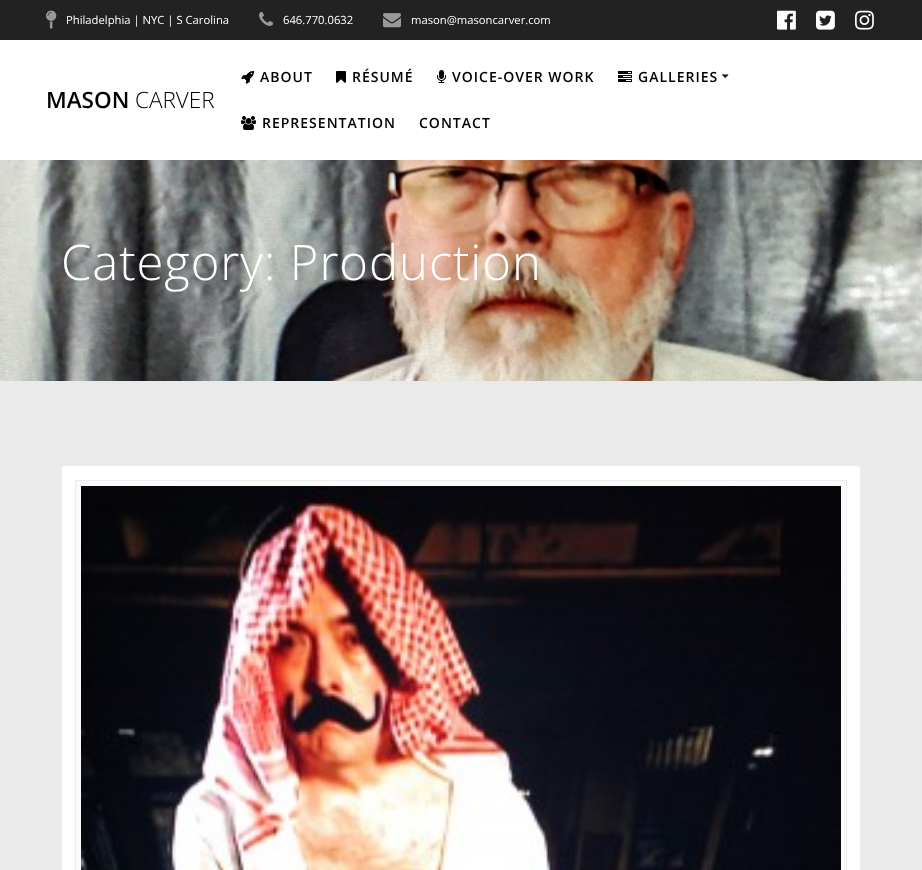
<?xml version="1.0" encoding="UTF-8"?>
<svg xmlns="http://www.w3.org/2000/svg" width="922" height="870">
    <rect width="100%" height="100%" fill="#EAEAEA"/>
    <rect x="0" y="0" width="922" height="40" fill="#222222"/>
    <image x="46" y="10" width="11" height="19" href="img_01.png"/>
    <text x="66" y="24" font-family="Open Sans" font-size="11.25" fill="#FFFFFF">Philadelphia | NYC | S Carolina</text>
    <image x="259" y="11" width="15" height="15" href="img_02.png"/>
    <text x="283" y="24" font-family="Open Sans" font-size="11.25" fill="#FFFFFF">646.770.0632</text>
    <image x="383" y="13" width="18" height="15" href="img_03.png"/>
    <text x="411" y="24" font-family="Open Sans" font-size="11.25" fill="#FFFFFF">mason@masoncarver.com</text>
    <image x="777" y="10" width="19" height="20" href="img_04.png"/>
    <image x="816" y="10" width="19" height="20" href="img_05.png"/>
    <image x="855" y="10" width="19" height="20" href="img_06.png"/>
    <rect x="0" y="40" width="922" height="120" fill="#FFFFFF"/>
    <text x="46" y="108" font-family="Open Sans" font-size="22.5" font-weight="600" fill="#000000">MASON</text>
    <text x="135" y="108" font-family="Open Sans" font-size="22.5" font-weight="300" fill="#000000">CARVER</text>
    <image x="241" y="71" width="13" height="13" href="img_07.png"/>
    <text x="260" y="82" font-family="Open Sans" font-size="14" font-weight="600" letter-spacing="1" fill="#000000">ABOUT</text>
    <image x="336" y="71" width="10" height="12" href="img_08.png"/>
    <text x="352" y="82" font-family="Open Sans" font-size="14" font-weight="600" letter-spacing="1" fill="#000000">RÉSUMÉ</text>
    <image x="437" y="70" width="9" height="13" href="img_09.png"/>
    <text x="452" y="82" font-family="Open Sans" font-size="14" font-weight="600" letter-spacing="1" fill="#000000">VOICE-OVER WORK</text>
    <image x="618" y="71" width="14" height="11" href="img_10.png"/>
    <text x="638" y="82" font-family="Open Sans" font-size="14" font-weight="600" letter-spacing="1" fill="#000000">GALLERIES</text>
    <image x="722" y="74" width="7" height="4" href="img_11.png"/>
    <image x="241" y="116" width="15" height="14" href="img_12.png"/>
    <text x="262" y="128" font-family="Open Sans" font-size="14" font-weight="600" letter-spacing="1" fill="#000000">REPRESENTATION</text>
    <text x="419" y="128" font-family="Open Sans" font-size="14" font-weight="600" letter-spacing="1" fill="#000000">CONTACT</text>
    <image x="0" y="160" width="922" height="221" href="img_13.png"/>
    <image x="209" y="160" width="713" height="221" href="img_14.png"/>
    <text x="61" y="280" font-family="Open Sans" font-size="49" font-weight="300" letter-spacing="0.9" fill="#FFFFFF">Category: Production</text>
    <rect x="61.5" y="465.5" width="799" height="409" rx="3.5" fill="#FFFFFF" stroke="#ECECEC"/>
    <rect x="75.5" y="480.5" width="771" height="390" fill="#FAFAFA" stroke="#ECECEC"/>
    <image x="81" y="486" width="760" height="384" href="img_15.png"/>
</svg>
